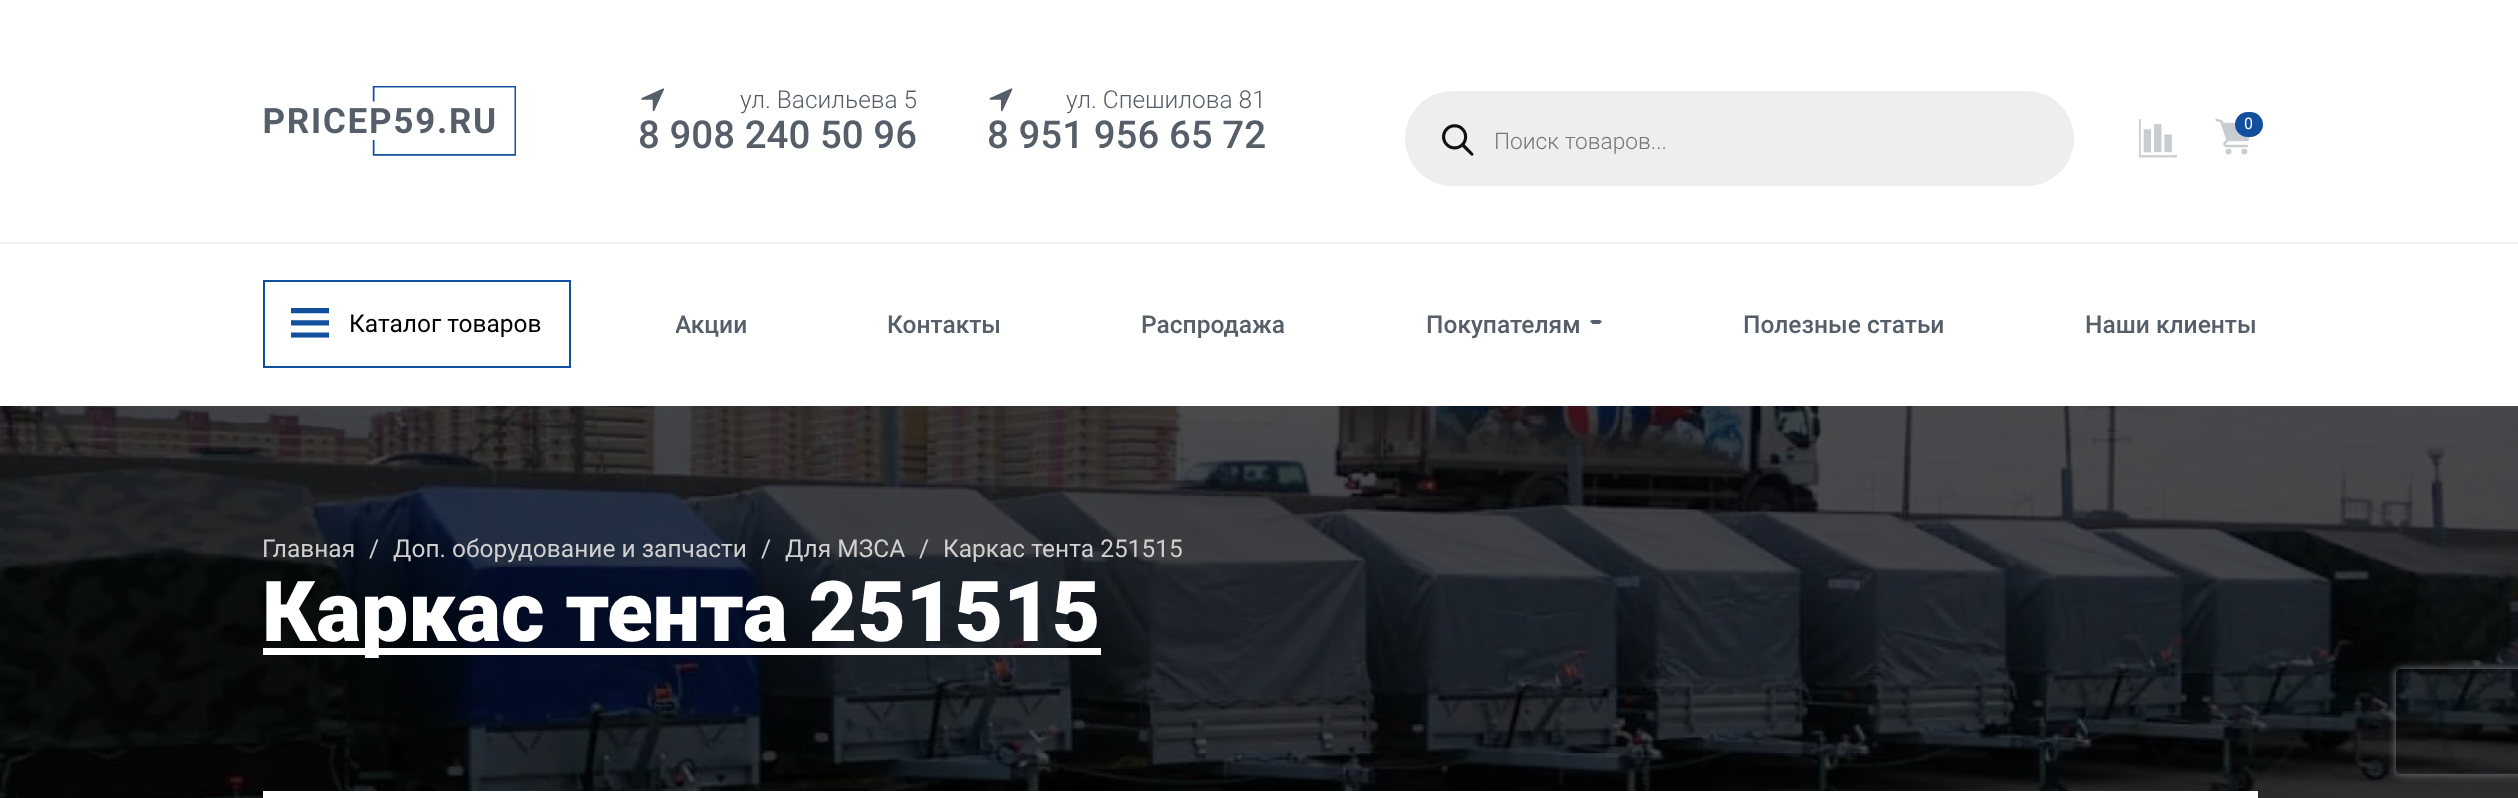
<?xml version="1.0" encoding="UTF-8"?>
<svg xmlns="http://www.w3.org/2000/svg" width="2518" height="798">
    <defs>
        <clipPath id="clip1"><rect x="676" y="292" width="71" height="63"/></clipPath>
        <clipPath id="clip2"><path d="M 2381 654 H 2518 V 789 H 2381 Z M 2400 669 H 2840 C 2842 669 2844 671 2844 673 V 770 C 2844 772 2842 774 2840 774 H 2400 C 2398 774 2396 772 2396 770 V 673 C 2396 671 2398 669 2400 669 Z" clip-rule="evenodd"/></clipPath>
        <filter id="blur1" x="-50%" y="-200%" width="200%" height="500%"><feGaussianBlur stdDeviation="4.5"/></filter>
    </defs>
    <rect width="100%" height="100%" fill="#FFFFFF"/>
    <image x="264" y="86" width="252" height="70" href="img_01.png"/>
    <image x="641" y="88" width="23" height="24" href="img_02.png"/>
    <text x="740" y="108" font-family="Roboto" font-size="24.5" font-weight="300" fill="#565E6A">ул. Васильева 5</text>
    <text x="638" y="148" font-family="Roboto" font-size="38.5" font-weight="500" fill="#565E6A">8 908 240 50 96</text>
    <image x="989" y="88" width="24" height="24" href="img_03.png"/>
    <text x="1066" y="108" font-family="Roboto" font-size="24.5" font-weight="300" fill="#565E6A">ул. Спешилова 81</text>
    <text x="987" y="148" font-family="Roboto" font-size="38.5" font-weight="500" fill="#565E6A">8 951 956 65 72</text>
    <rect x="1405" y="91" width="669" height="95" rx="47.5" fill="#EEEEEE"/>
    <image x="1442" y="124" width="32" height="32" href="img_04.png"/>
    <text x="1494" y="149" font-family="Roboto" font-size="22.75" font-weight="300" fill="#777777">Поиск товаров...</text>
    <image x="2139" y="119" width="38" height="39" href="img_05.png"/>
    <image x="2215" y="118" width="35" height="37" href="img_06.png"/>
    <rect x="2235" y="112" width="28" height="25" rx="12.5" fill="#124F9D"/>
    <text x="2244" y="129" font-family="Roboto" font-size="16" fill="#FFFFFF">0</text>
    <rect x="0" y="242" width="2518" height="2" fill="#F0F0F0"/>
    <rect x="264" y="281" width="306" height="86" fill="none" stroke="#124F9D" stroke-width="2"/>
    <image x="291" y="308" width="38" height="30" href="img_07.png"/>
    <text x="349" y="332" font-family="Roboto" font-size="24.5" fill="#000000">Каталог товаров</text>
    <g clip-path="url(#clip1)">
        <text x="675" y="333" font-family="Roboto" font-size="24.5" font-weight="500" fill="#565E6A">Акции</text>
    </g>
    <text x="887" y="333" font-family="Roboto" font-size="24.5" font-weight="500" fill="#565E6A">Контакты</text>
    <text x="1141" y="333" font-family="Roboto" font-size="24.5" font-weight="500" fill="#565E6A">Распродажа</text>
    <text x="1426" y="333" font-family="Roboto" font-size="24.5" font-weight="500" fill="#565E6A">Покупателям</text>
    <path d="M 1590 321 C 1591.5 319.5 1594 320 1595.5 320 C 1598 320 1600.5 319.5 1602 321.5 L 1599.5 324 H 1592.5 Z" fill="#565E6A"/>
    <text x="1743" y="333" font-family="Roboto" font-size="24.5" font-weight="500" fill="#565E6A">Полезные статьи</text>
    <text x="2085" y="333" font-family="Roboto" font-size="24.5" font-weight="500" fill="#565E6A">Наши клиенты</text>
    <image x="0" y="406" width="2518" height="392" href="img_08.png"/>
    <text x="262" y="557" font-family="Roboto" font-size="24.5" fill="#D0D0D0">Главная</text>
    <text x="369" y="557" font-family="Roboto" font-size="24.5" fill="#D0D0D0">/</text>
    <text x="393" y="557" font-family="Roboto" font-size="24.5" fill="#D0D0D0">Доп. оборудование и запчасти</text>
    <text x="761" y="557" font-family="Roboto" font-size="24.5" fill="#D0D0D0">/</text>
    <text x="785" y="557" font-family="Roboto" font-size="24.5" fill="#D0D0D0">Для МЗСА</text>
    <text x="919" y="557" font-family="Roboto" font-size="24.5" fill="#D0D0D0">/</text>
    <text x="943" y="557" font-family="Roboto" font-size="24.5" fill="#D0D0D0">Каркас тента 251515</text>
    <rect x="263" y="648" width="838" height="7" fill="#FFFFFF"/>
    <text x="262" y="641" font-family="Roboto" font-size="84" font-weight="900" fill="#FFFFFF">Каркас тента 251515</text>
    <rect x="263" y="791" width="1995" height="7" fill="#FFFFFF"/>
    <g clip-path="url(#clip2)">
        <rect x="2396" y="669" width="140" height="105" rx="4" fill="#808080" filter="url(#blur1)"/>
    </g>
</svg>
